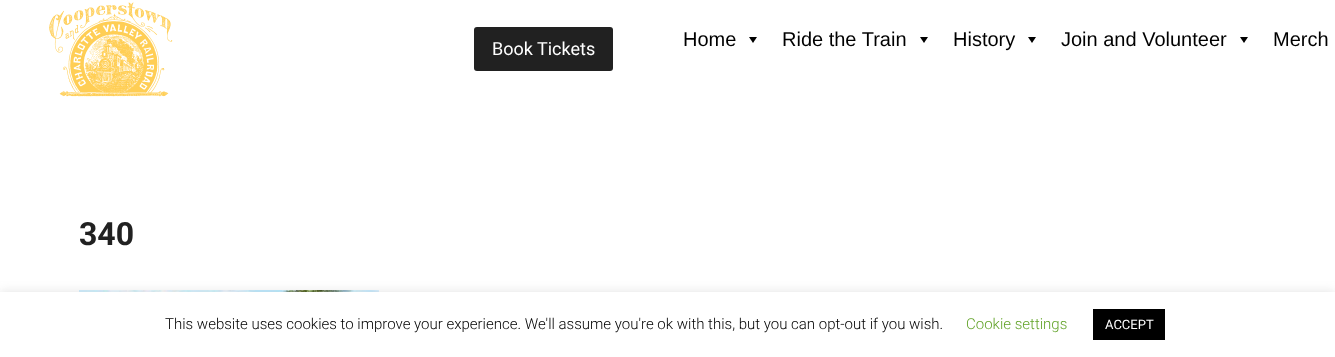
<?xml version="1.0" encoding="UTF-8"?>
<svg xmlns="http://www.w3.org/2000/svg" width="1335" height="357">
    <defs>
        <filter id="blur1" x="-50%" y="-200%" width="200%" height="500%"><feGaussianBlur stdDeviation="5"/></filter>
    </defs>
    <rect width="100%" height="100%" fill="#FFFFFF"/>
    <image x="49" y="2" width="124" height="95" href="img_01.png"/>
    <rect x="474" y="27" width="139" height="44" rx="3" fill="#212121"/>
    <text x="492" y="55" font-family="Roboto" font-size="18" fill="#FFFFFF">Book Tickets</text>
    <text x="683" y="46" font-family="Liberation Sans" font-size="20" fill="#000000">Home</text>
    <path d="M 757 37 L 753 43 L 749 37 Z" fill="#000000"/>
    <text x="782" y="46" font-family="Liberation Sans" font-size="20" fill="#000000">Ride the Train</text>
    <path d="M 928 37 L 924 43 L 920 37 Z" fill="#000000"/>
    <text x="953" y="46" font-family="Liberation Sans" font-size="20" fill="#000000">History</text>
    <path d="M 1036 37 L 1032 43 L 1028 37 Z" fill="#000000"/>
    <text x="1061" y="46" font-family="Liberation Sans" font-size="20" fill="#000000">Join and Volunteer</text>
    <path d="M 1248 37 L 1244 43 L 1240 37 Z" fill="#000000"/>
    <text x="1273" y="46" font-family="Liberation Sans" font-size="20" fill="#000000">Merch</text>
    <text x="79" y="245" font-family="Roboto" font-size="32" font-weight="700" fill="#212121">340</text>
    <image x="79" y="290" width="300" height="2" href="img_02.png"/>
    <rect x="0" y="291" width="1335" height="65" fill="#ACABAB" fill-opacity="0.3" filter="url(#blur1)"/>
    <rect x="0" y="292" width="1335" height="65" fill="#FFFFFF"/>
    <text x="165" y="329" font-family="Roboto" font-size="15" font-weight="300" fill="#000000">This website uses cookies to improve your experience. We'll assume you're ok with this, but you can opt-out if you wish.</text>
    <text x="966" y="329" font-family="Roboto" font-size="15" font-weight="300" fill="#62A329">Cookie settings</text>
    <rect x="1093" y="309" width="72" height="31" fill="#000000"/>
    <text x="1105" y="329" font-family="Roboto" font-size="13" fill="#FFFFFF">ACCEPT</text>
</svg>
